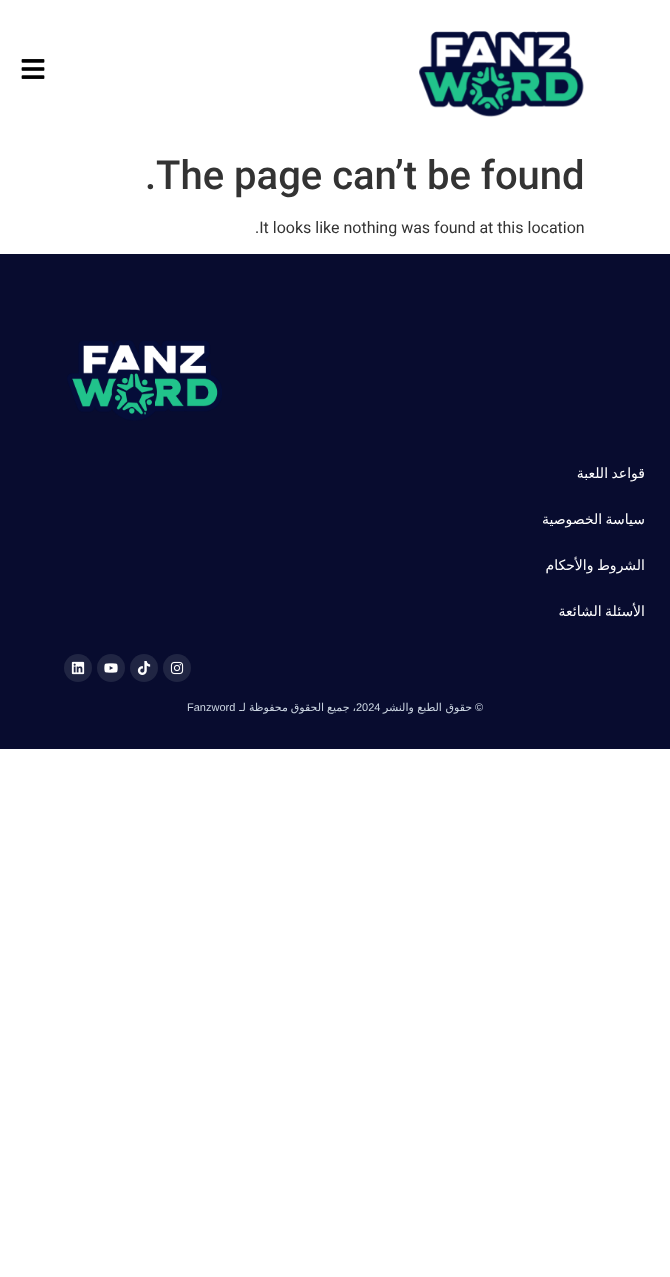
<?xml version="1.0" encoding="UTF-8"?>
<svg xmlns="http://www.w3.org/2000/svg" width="670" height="1277">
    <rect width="100%" height="100%" fill="#FFFFFF"/>
    <image x="419" y="31" width="165" height="86" href="img_01.png"/>
    <image x="21" y="59" width="24" height="20" href="img_02.png"/>
    <text x="145" y="189" font-family="Roboto" font-size="40" font-weight="500" fill="#333333">.The page can’t be found</text>
    <text x="255" y="233" font-family="Roboto" font-size="16" fill="#333333">.It looks like nothing was found at this location</text>
    <rect x="0" y="254" width="670" height="495" fill="#080C2F"/>
    <image x="67" y="340" width="155" height="81" href="img_03.png"/>
    <text x="645" y="478" word-spacing="-1" font-family="DejaVu Sans" font-size="14" direction="rtl" fill="#FFFFFF">قواعد اللعبة</text>
    <text x="645" y="524" word-spacing="-1" font-family="DejaVu Sans" font-size="14" direction="rtl" fill="#FFFFFF">سياسة الخصوصية</text>
    <text x="645" y="570" word-spacing="-1" font-family="DejaVu Sans" font-size="14" direction="rtl" fill="#FFFFFF">الشروط والأحكام</text>
    <text x="645" y="616" word-spacing="-1" font-family="DejaVu Sans" font-size="14" direction="rtl" fill="#FFFFFF">الأسئلة الشائعة</text>
    <circle cx="177" cy="668" r="14" fill="#202543"/>
    <image x="170" y="661" width="14" height="14" href="img_04.png"/>
    <circle cx="144" cy="668" r="14" fill="#202543"/>
    <image x="137" y="661" width="14" height="14" href="img_05.png"/>
    <circle cx="111" cy="668" r="14" fill="#202543"/>
    <image x="104" y="663" width="14" height="10" href="img_06.png"/>
    <circle cx="78" cy="668" r="14" fill="#202543"/>
    <image x="71" y="661" width="14" height="14" href="img_07.png"/>
    <text x="483" y="711" font-family="Liberation Sans" font-size="11" direction="rtl" fill="#CBD5E1">©</text>
    <text x="472" y="711" font-family="DejaVu Sans" font-size="11" direction="rtl" fill="#CBD5E1">حقوق الطبع والنشر</text>
    <text x="356" y="711" font-family="Liberation Sans" font-size="11" fill="#CBD5E1">2024</text>
    <text x="356" y="711" word-spacing="-0.5" font-family="DejaVu Sans" font-size="11" direction="rtl" fill="#CBD5E1">، جميع الحقوق محفوظة لـ</text>
    <text x="187" y="711" font-family="Liberation Sans" font-size="11" fill="#CBD5E1">Fanzword</text>
</svg>
